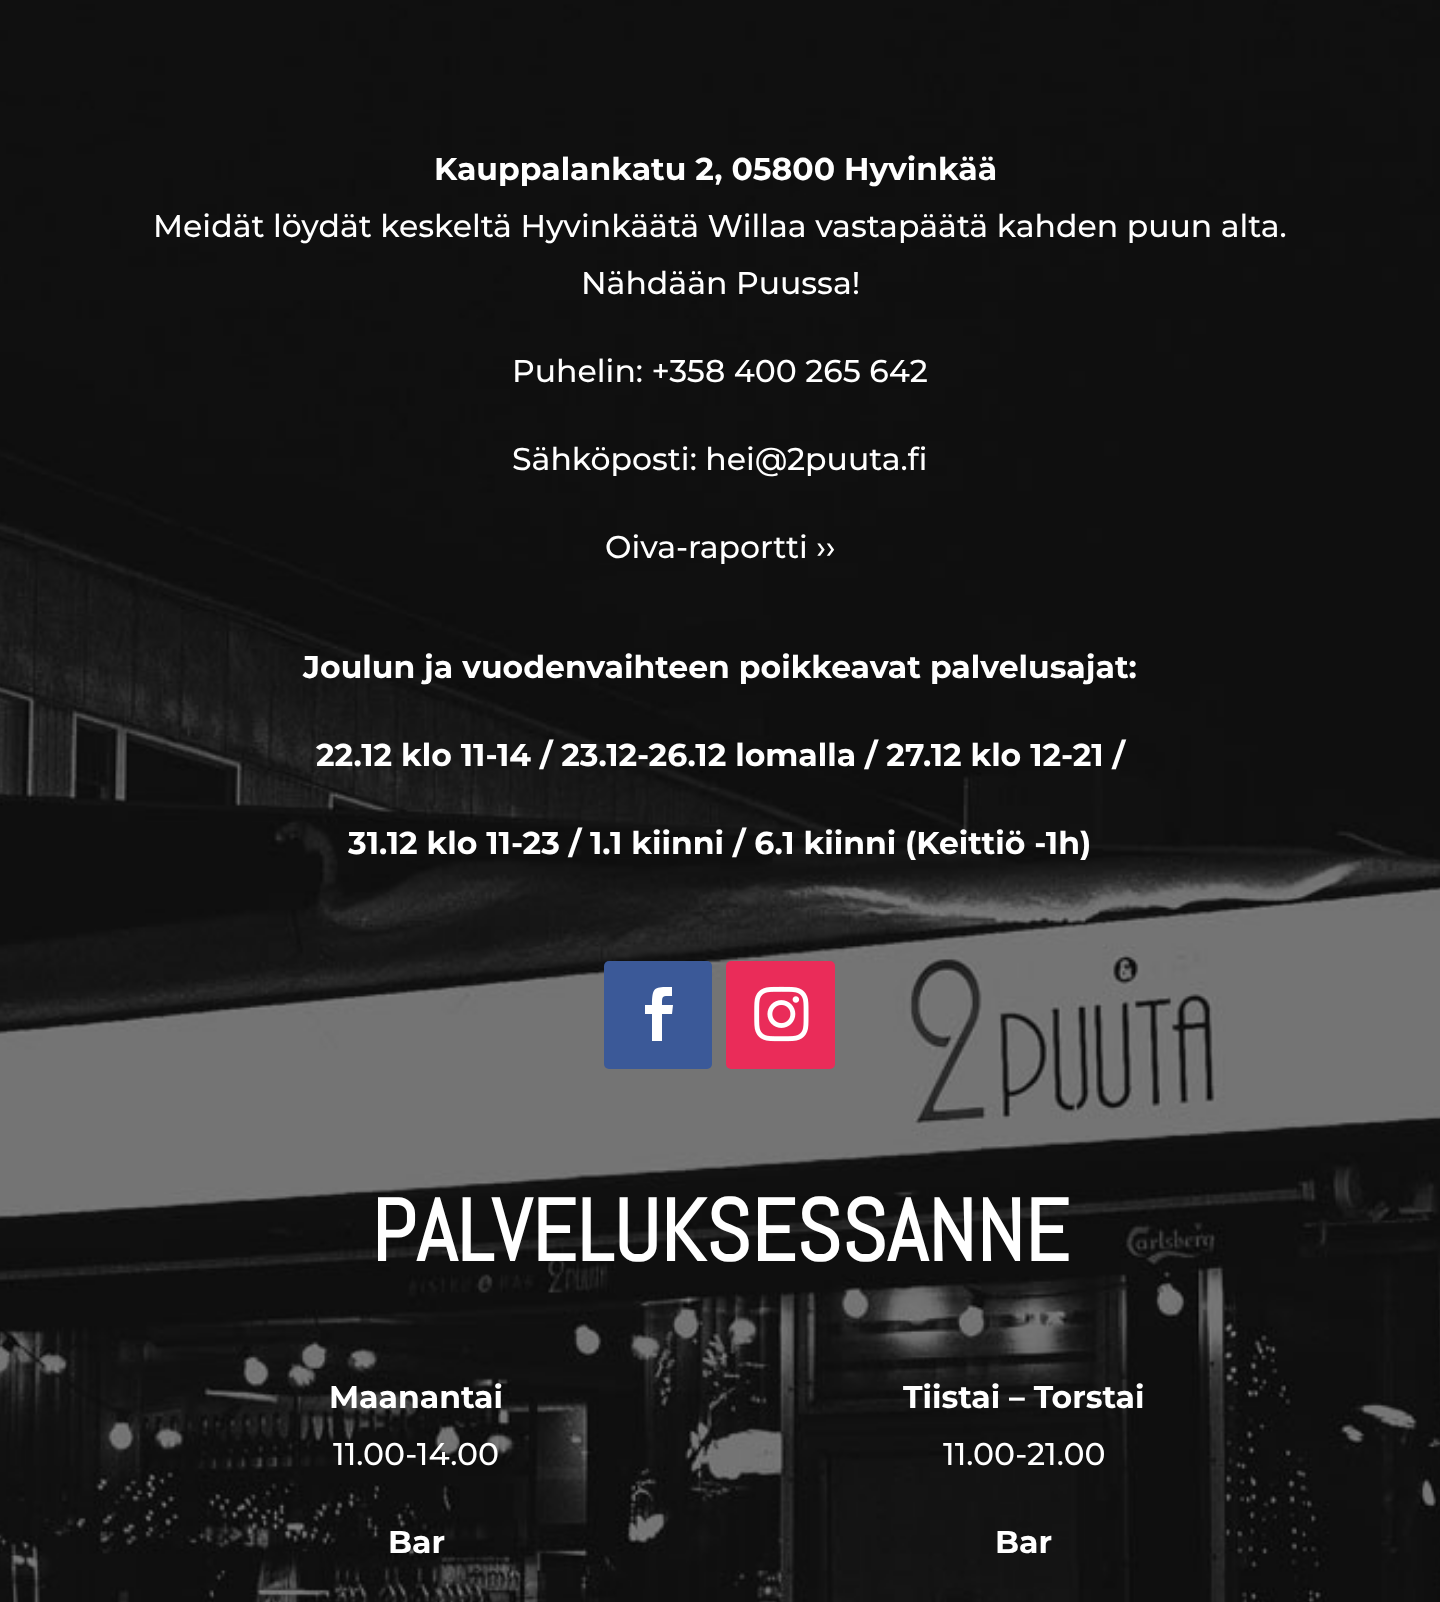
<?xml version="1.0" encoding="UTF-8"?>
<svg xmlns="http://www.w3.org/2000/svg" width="1440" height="1602">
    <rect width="100%" height="100%" fill="#FFFFFF"/>
    <image x="0" y="0" width="1440" height="1602" href="img_01.png"/>
    <text x="434" y="180" font-family="Montserrat" font-size="31.5" font-weight="700" fill="#FFFFFF">Kauppalankatu 2, 05800 Hyvinkää</text>
    <text x="153" y="237" font-family="Montserrat" font-size="31.5" font-weight="500" fill="#FFFFFF">Meidät löydät keskeltä Hyvinkäätä Willaa vastapäätä kahden puun alta.</text>
    <text x="581" y="294" font-family="Montserrat" font-size="31.5" font-weight="500" fill="#FFFFFF">Nähdään Puussa!</text>
    <text x="512" y="382" font-family="Montserrat" font-size="31.5" font-weight="500" fill="#FFFFFF">Puhelin: +358 400 265 642</text>
    <text x="512" y="470" font-family="Montserrat" font-size="31.5" font-weight="500" fill="#FFFFFF">Sähköposti: hei@2puuta.fi</text>
    <text x="605" y="558" font-family="Montserrat" font-size="31.5" font-weight="500" fill="#FFFFFF">Oiva-raportti ››</text>
    <text x="303" y="678" font-family="Montserrat" font-size="31.5" font-weight="700" fill="#FFFFFF">Joulun ja vuodenvaihteen poikkeavat palvelusajat:</text>
    <text x="316" y="766" font-family="Montserrat" font-size="31.5" font-weight="700" fill="#FFFFFF">22.12 klo 11-14 / 23.12-26.12 lomalla / 27.12 klo 12-21 /</text>
    <text x="348" y="854" font-family="Montserrat" font-size="31.5" font-weight="700" fill="#FFFFFF">31.12 klo 11-23 / 1.1 kiinni / 6.1 kiinni (Keittiö -1h)</text>
    <rect x="604" y="961" width="108" height="108" rx="5" fill="#3B5998"/>
    <path d="M 652 1041 H 662 V 1014 H 672 L 673 1005 H 662 C 662 995 662 996 672 996 V 987 C 655 987 652 986 652 1005 H 645 V 1014 H 652 Z" fill="#FFFFFF"/>
    <rect x="726" y="961" width="109" height="108" rx="5" fill="#EA2C59"/>
    <image x="754" y="986" width="55" height="56" href="img_02.png"/>
    <text x="371" y="1261" font-family="Abel" font-size="87.5" font-weight="700" fill="#FFFFFF">PALVELUKSESSANNE</text>
    <text x="329" y="1408" font-family="Montserrat" font-size="31.5" font-weight="700" fill="#FFFFFF">Maanantai</text>
    <text x="333" y="1465" font-family="Montserrat" font-size="31.5" font-weight="500" fill="#FFFFFF">11.00-14.00</text>
    <text x="388" y="1553" font-family="Montserrat" font-size="31.5" font-weight="700" fill="#FFFFFF">Bar</text>
    <text x="903" y="1408" font-family="Montserrat" font-size="31.5" font-weight="700" fill="#FFFFFF">Tiistai – Torstai</text>
    <text x="943" y="1465" font-family="Montserrat" font-size="31.5" font-weight="500" fill="#FFFFFF">11.00-21.00</text>
    <text x="995" y="1553" font-family="Montserrat" font-size="31.5" font-weight="700" fill="#FFFFFF">Bar</text>
</svg>
